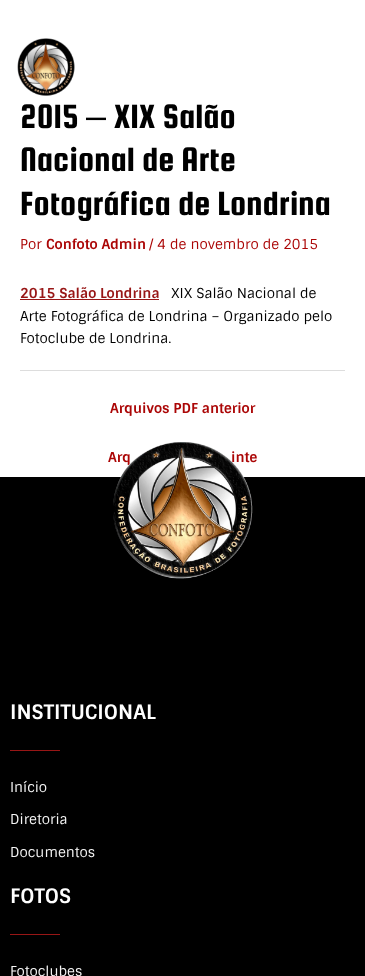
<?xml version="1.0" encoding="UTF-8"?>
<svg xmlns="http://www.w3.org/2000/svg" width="365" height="976">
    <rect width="100%" height="100%" fill="#FFFFFF"/>
    <image x="17" y="38" width="58" height="58" href="img_01.png"/>
    <text x="20" y="128" font-family="Squada One" font-size="36" fill="#000000">2015</text>
    <text x="86" y="128" font-family="Liberation Sans" font-size="36" fill="#000000">–</text>
    <text x="114" y="128" font-family="Squada One" font-size="36" fill="#000000">XIX Salão</text>
    <text font-family="Squada One" font-size="36" fill="#000000">
        <tspan x="20" y="171">Nacional de Arte</tspan>
        <tspan x="20" y="215">Fotográfica de Londrina</tspan>
    </text>
    <text x="20" y="249" font-family="Sintony" font-size="13.7" fill="#AB0606">Por</text>
    <text x="46" y="249" font-family="Sintony" font-size="13.7" font-weight="700" fill="#AB0606">Confoto Admin</text>
    <text x="149" y="249" font-family="Sintony" font-size="13.7" fill="#AB0606">/ 4 de novembro de 2015</text>
    <text x="20" y="298" font-family="Sintony" font-size="13.7" font-weight="700" fill="#981616">2015 Salão Londrina</text>
    <rect x="20" y="299" width="139" height="1" fill="#981616"/>
    <text x="171" y="298" font-family="Sintony" font-size="13.7" fill="#000000">XIX Salão Nacional de</text>
    <text font-family="Sintony" font-size="13.7" fill="#000000">
        <tspan x="20" y="321">Arte Fotográfica de Londrina – Organizado pelo</tspan>
        <tspan x="20" y="343">Fotoclube de Londrina.</tspan>
    </text>
    <rect x="20" y="370" width="325" height="1" fill="#DDDDDD"/>
    <text x="110" y="413" font-family="Sintony" font-size="13.7" font-weight="700" fill="#AB0606">Arquivos PDF anterior</text>
    <text x="108" y="462" font-family="Sintony" font-size="13.7" font-weight="700" fill="#AB0606">Arq</text>
    <text x="231" y="462" font-family="Sintony" font-size="13.7" font-weight="700" fill="#AB0606">inte</text>
    <rect x="0" y="477" width="365" height="499" fill="#000000"/>
    <image x="113" y="442" width="140" height="137" href="img_02.png"/>
    <text x="10" y="719" font-family="Sintony" font-size="20" font-weight="700" fill="#FFFFFF">INSTITUCIONAL</text>
    <rect x="10" y="750" width="50" height="1" fill="#981616"/>
    <text x="10" y="792" font-family="Sintony" font-size="13.7" fill="#F5F5F5">Início</text>
    <text x="10" y="824" font-family="Sintony" font-size="13.7" fill="#F5F5F5">Diretoria</text>
    <text x="10" y="857" font-family="Sintony" font-size="13.7" fill="#F5F5F5">Documentos</text>
    <text x="10" y="903" font-family="Sintony" font-size="20" font-weight="700" fill="#FFFFFF">FOTOS</text>
    <rect x="10" y="934" width="50" height="1" fill="#981616"/>
    <text x="10" y="976" font-family="Sintony" font-size="13.7" fill="#F5F5F5">Fotoclubes</text>
</svg>
